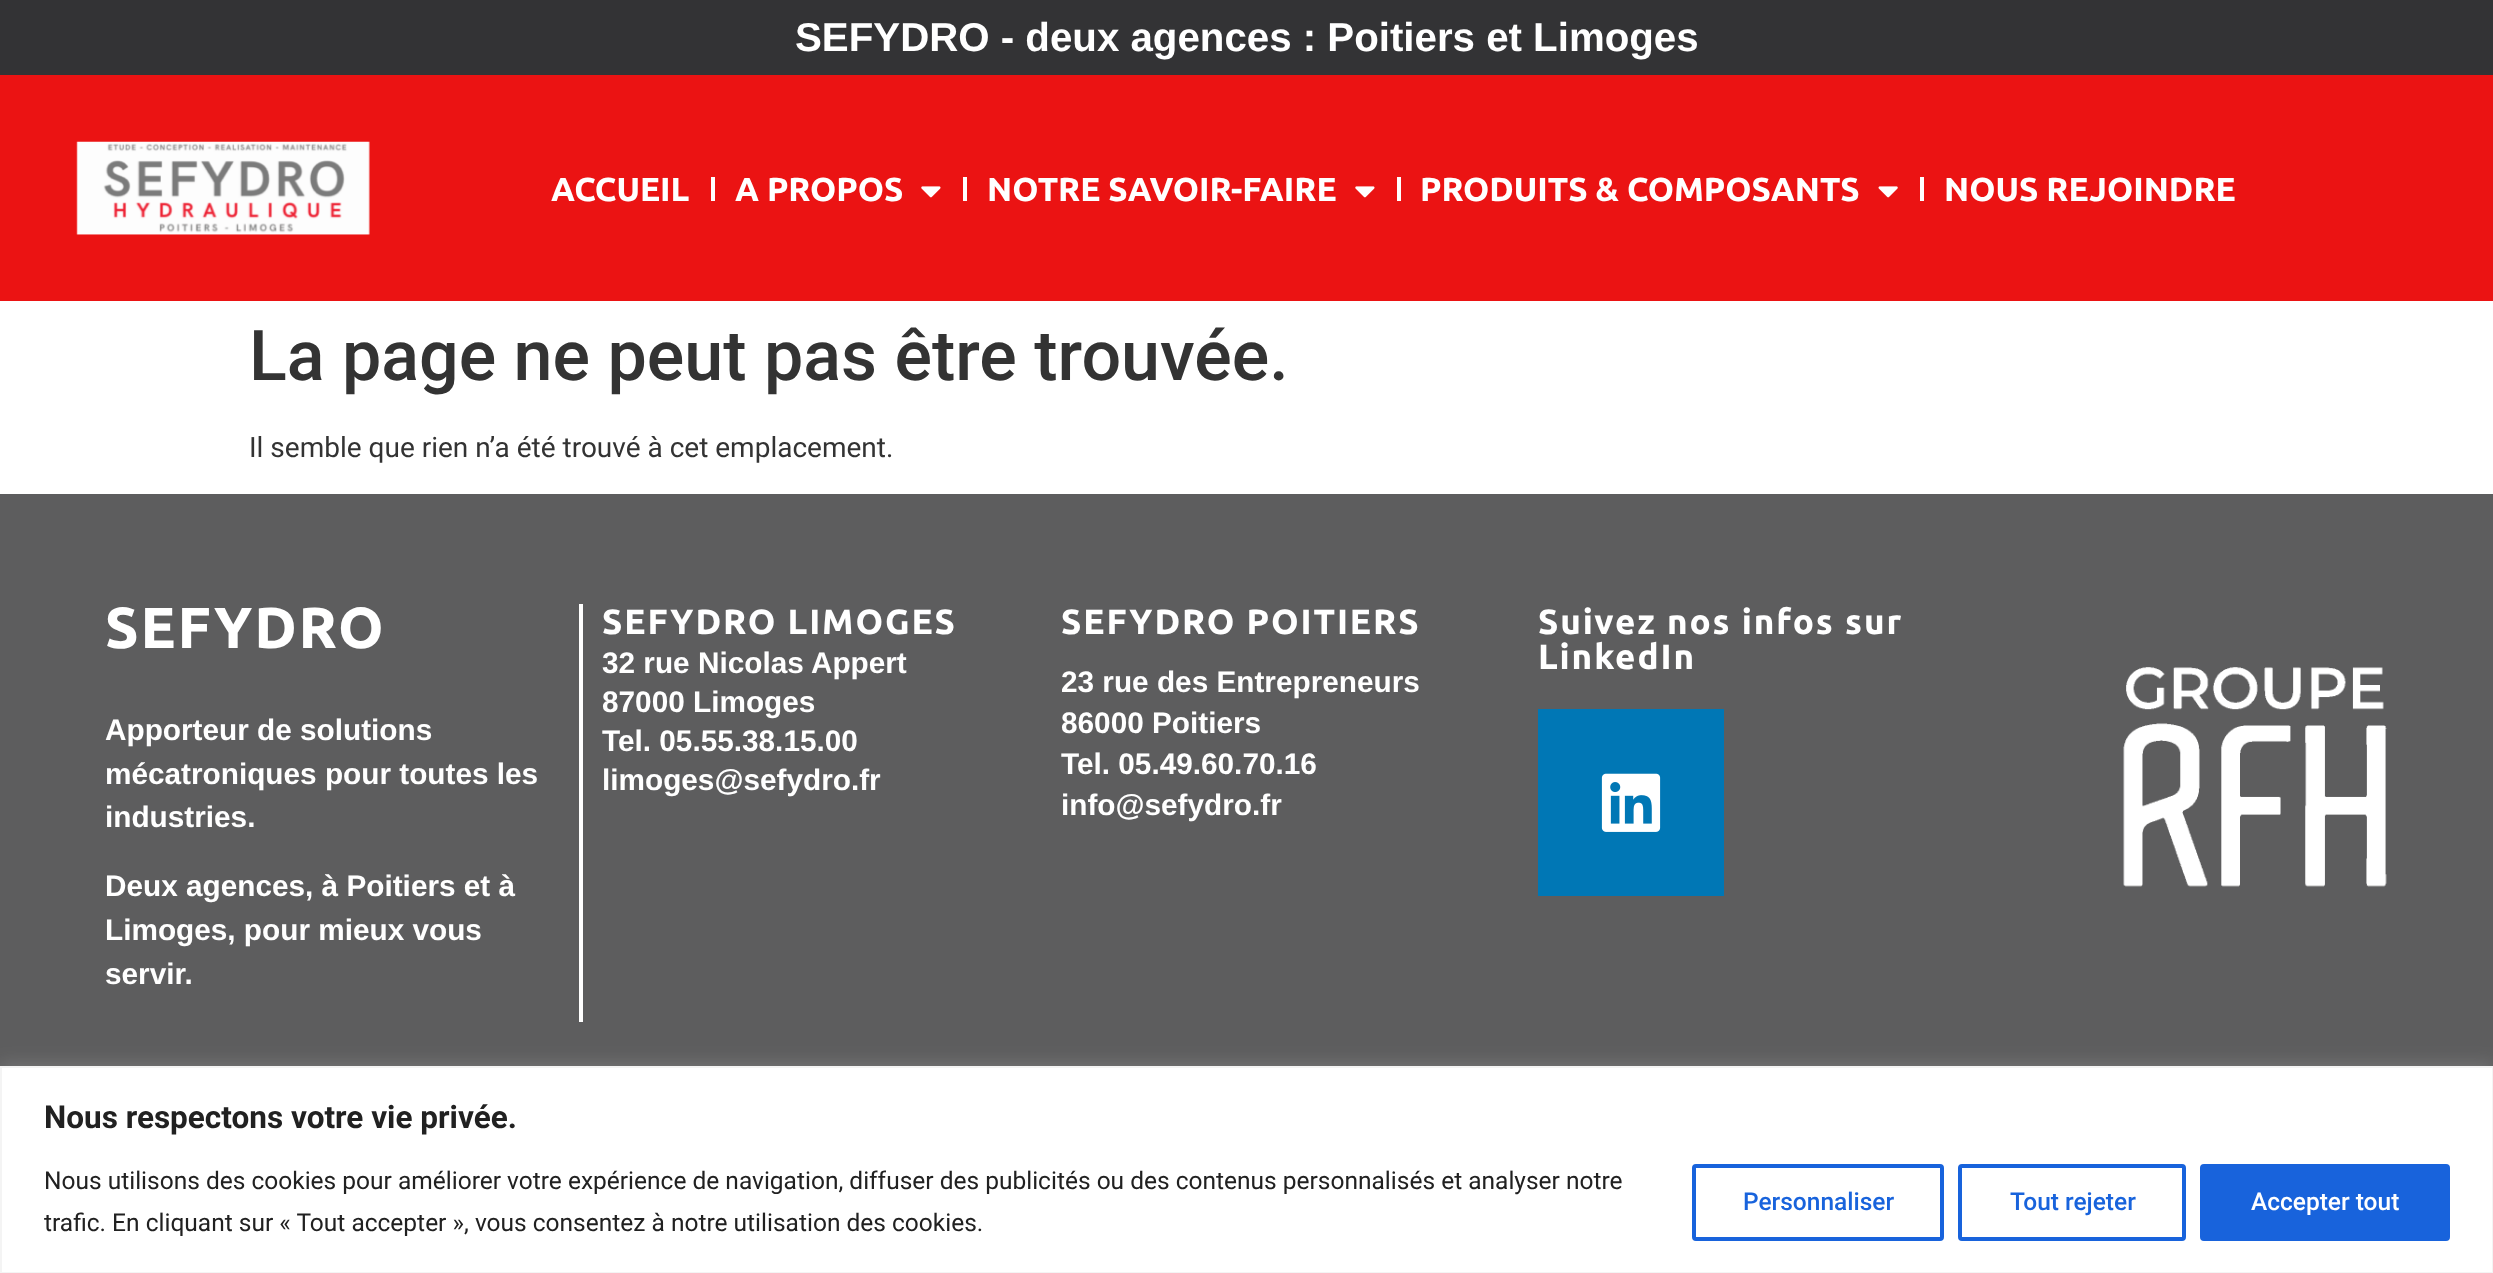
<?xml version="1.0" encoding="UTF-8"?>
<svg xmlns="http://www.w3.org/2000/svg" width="2493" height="1273">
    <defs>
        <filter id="blur1" x="-50%" y="-200%" width="200%" height="500%"><feGaussianBlur stdDeviation="9"/></filter>
    </defs>
    <rect width="100%" height="100%" fill="#FFFFFF"/>
    <rect x="0" y="0" width="2493" height="75" fill="#333335"/>
    <text x="795" y="51" font-family="Liberation Sans" font-size="40.25" font-weight="700" fill="#FFFFFF">SEFYDRO - deux agences : Poitiers et Limoges</text>
    <rect x="0" y="75" width="2493" height="226" fill="#EB1313"/>
    <image x="76" y="141" width="294" height="94" href="img_01.png"/>
    <text x="551" y="201" font-family="Ubuntu" font-size="33.25" font-weight="700" fill="#FFFFFF">ACCUEIL</text>
    <rect x="711" y="177" width="4" height="24" fill="#FFFFFF"/>
    <text x="735" y="201" font-family="Ubuntu" font-size="33.25" font-weight="700" fill="#FFFFFF">A PROPOS</text>
    <image x="921" y="186" width="20" height="12" href="img_02.png"/>
    <rect x="963" y="177" width="4" height="24" fill="#FFFFFF"/>
    <text x="987" y="201" font-family="Ubuntu" font-size="33.25" font-weight="700" fill="#FFFFFF">NOTRE SAVOIR-FAIRE</text>
    <image x="1355" y="186" width="20" height="12" href="img_02.png"/>
    <rect x="1397" y="177" width="4" height="24" fill="#FFFFFF"/>
    <text x="1420" y="201" font-family="Ubuntu" font-size="33.25" font-weight="700" fill="#FFFFFF">PRODUITS &amp; COMPOSANTS</text>
    <image x="1878" y="186" width="20" height="12" href="img_03.png"/>
    <rect x="1920" y="177" width="4" height="24" fill="#FFFFFF"/>
    <text x="1944" y="201" font-family="Ubuntu" font-size="33.25" font-weight="700" fill="#FFFFFF">NOUS REJOINDRE</text>
    <text x="249" y="380" font-family="Roboto" font-size="70" font-weight="500" fill="#333333">La page ne peut pas être trouvée.</text>
    <text x="249" y="457" font-family="Roboto" font-size="28" fill="#333333">Il semble que rien n’a été trouvé à cet emplacement.</text>
    <rect x="0" y="494" width="2493" height="572" fill="#5D5D5E"/>
    <rect x="579" y="604" width="4" height="418" fill="#FFFFFF"/>
    <text x="105" y="648" font-family="Ubuntu" font-size="57.75" font-weight="700" letter-spacing="1.9" fill="#FFFFFF">SEFYDRO</text>
    <text font-family="Liberation Sans" font-size="29.75" font-weight="700" fill="#FFFFFF">
        <tspan x="105" y="740">Apporteur de solutions</tspan>
        <tspan x="105" y="784">mécatroniques pour toutes les</tspan>
        <tspan x="105" y="827">industries.</tspan>
    </text>
    <text font-family="Liberation Sans" font-size="29.75" font-weight="700" fill="#FFFFFF">
        <tspan x="105" y="896">Deux agences, à Poitiers et à</tspan>
        <tspan x="105" y="940">Limoges, pour mieux vous</tspan>
        <tspan x="105" y="984">servir.</tspan>
    </text>
    <text x="602" y="634" font-family="Ubuntu" font-size="35" font-weight="700" letter-spacing="1.9" fill="#FFFFFF">SEFYDRO LIMOGES</text>
    <text font-family="Liberation Sans" font-size="29.75" font-weight="700" fill="#FFFFFF">
        <tspan x="602" y="673">32 rue Nicolas Appert</tspan>
        <tspan x="602" y="712">87000 Limoges</tspan>
        <tspan x="602" y="751">Tel. 05.55.38.15.00</tspan>
        <tspan x="602" y="790">limoges@sefydro.fr</tspan>
    </text>
    <text x="1061" y="634" font-family="Ubuntu" font-size="35" font-weight="700" letter-spacing="1.9" fill="#FFFFFF">SEFYDRO POITIERS</text>
    <text font-family="Liberation Sans" font-size="29.75" font-weight="700" fill="#FFFFFF">
        <tspan x="1061" y="692">23 rue des Entrepreneurs</tspan>
        <tspan x="1061" y="733">86000 Poitiers</tspan>
        <tspan x="1061" y="774">Tel. 05.49.60.70.16</tspan>
        <tspan x="1061" y="815">info@sefydro.fr</tspan>
    </text>
    <text font-family="Ubuntu" font-size="35" font-weight="700" letter-spacing="1.9" fill="#FFFFFF">
        <tspan x="1538" y="634">Suivez nos infos sur</tspan>
        <tspan x="1538" y="669">LinkedIn</tspan>
    </text>
    <rect x="1538" y="709" width="186" height="187" fill="#0077B5"/>
    <image x="1601" y="773" width="60" height="59" href="img_04.png"/>
    <image x="2123" y="667" width="264" height="220" href="img_05.png"/>
    <rect x="0" y="1064" width="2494" height="208" fill="#ACABAB" fill-opacity="0.3" filter="url(#blur1)"/>
    <rect x="1" y="1067" width="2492" height="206" fill="#FFFFFF" stroke="#F4F4F4" stroke-width="2"/>
    <text x="44" y="1128" font-family="Roboto" font-size="31.5" font-weight="700" fill="#212121">Nous respectons votre vie privée.</text>
    <text font-family="Roboto" font-size="24.5" fill="#212121">
        <tspan x="44" y="1189">Nous utilisons des cookies pour améliorer votre expérience de navigation, diffuser des publicités ou des contenus personnalisés et analyser notre</tspan>
        <tspan x="44" y="1231">trafic. En cliquant sur « Tout accepter », vous consentez à notre utilisation des cookies.</tspan>
    </text>
    <rect x="1694" y="1166" width="248" height="73" rx="2" fill="none" stroke="#1863DC" stroke-width="4"/>
    <text x="1743" y="1210" font-family="Roboto" font-size="24.5" font-weight="500" fill="#1863DC">Personnaliser</text>
    <rect x="1960" y="1166" width="224" height="73" rx="2" fill="none" stroke="#1863DC" stroke-width="4"/>
    <text x="2010" y="1210" font-family="Roboto" font-size="24.5" font-weight="500" fill="#1863DC">Tout rejeter</text>
    <rect x="2202" y="1166" width="246" height="73" rx="2" fill="#1863DC" stroke="#1863DC" stroke-width="4"/>
    <text x="2251" y="1210" font-family="Roboto" font-size="24.5" font-weight="500" fill="#FFFFFF">Accepter tout</text>
</svg>
